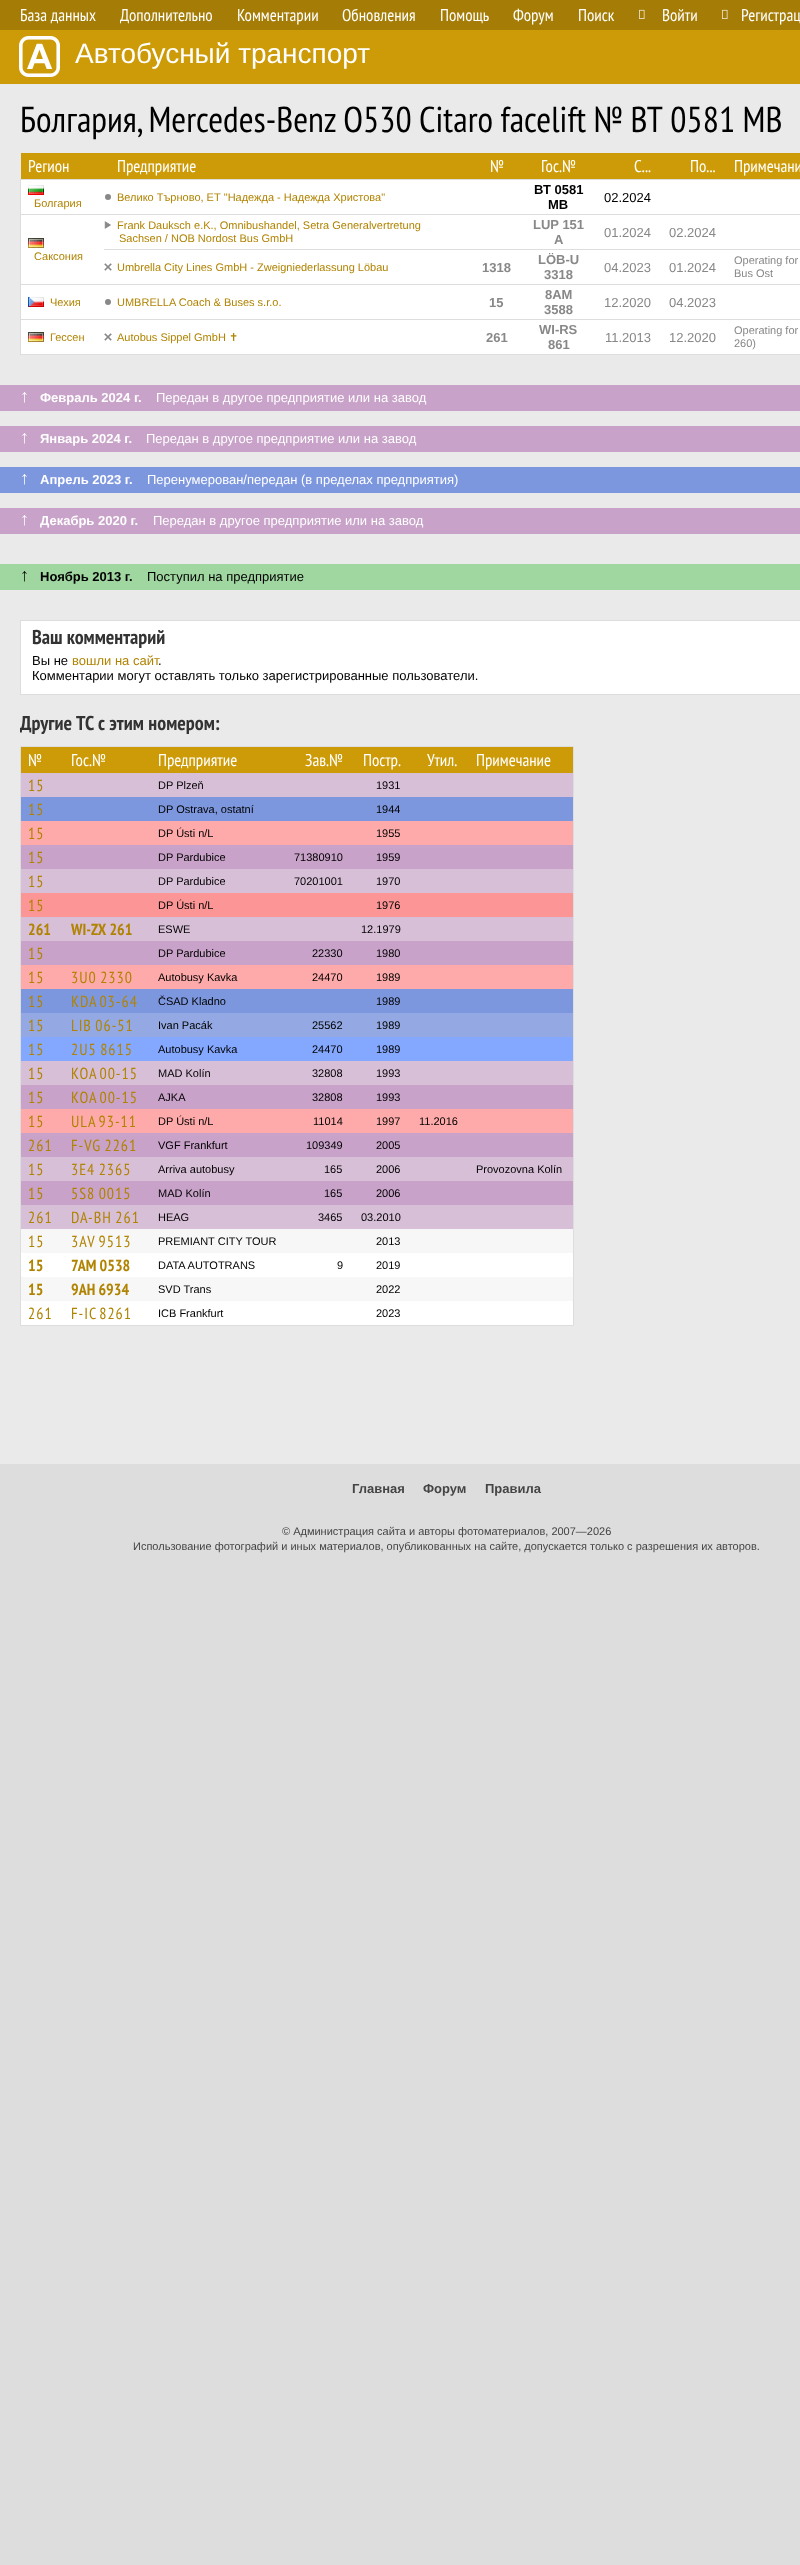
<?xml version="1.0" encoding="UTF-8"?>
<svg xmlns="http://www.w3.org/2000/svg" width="800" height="2565">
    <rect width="100%" height="100%" fill="#DDDDDD"/>
    <rect x="0" y="0" width="800" height="30" fill="#A47C06"/>
    <text x="20" y="21" font-family="PT Sans Narrow" font-size="17" fill="#FFFFFF">База данных</text>
    <text x="120" y="21" font-family="PT Sans Narrow" font-size="17" fill="#FFFFFF">Дополнительно</text>
    <text x="237" y="21" font-family="PT Sans Narrow" font-size="17" fill="#FFFFFF">Комментарии</text>
    <text x="342" y="21" font-family="PT Sans Narrow" font-size="17" fill="#FFFFFF">Обновления</text>
    <text x="440" y="21" font-family="PT Sans Narrow" font-size="17" fill="#FFFFFF">Помощь</text>
    <text x="513" y="21" font-family="PT Sans Narrow" font-size="17" fill="#FFFFFF">Форум</text>
    <text x="578" y="21" font-family="PT Sans Narrow" font-size="17" fill="#FFFFFF">Поиск</text>
    <image x="639" y="9" width="6" height="10" href="img_01.png"/>
    <text x="662" y="21" font-family="PT Sans Narrow" font-size="17" fill="#FFFFFF">Войти</text>
    <image x="722" y="9" width="6" height="10" href="img_01.png"/>
    <text x="741" y="21" font-family="PT Sans Narrow" font-size="17" fill="#FFFFFF">Регистрац</text>
    <rect x="0" y="30" width="800" height="54" fill="#CD9B08"/>
    <image x="19" y="36" width="41" height="41" href="img_02.png"/>
    <text x="75" y="63" font-family="Liberation Sans" font-size="28" fill="#FFFFFF">Автобусный транспорт</text>
    <rect x="0" y="84" width="800" height="1380" fill="#EAEAEA"/>
    <text x="20" y="132" word-spacing="-0.25" font-family="PT Sans Narrow" font-size="36" fill="#000000">Болгария, Mercedes-Benz O530 Citaro facelift № ВТ 0581 МВ</text>
    <rect x="21" y="153" width="779" height="26" fill="#CD9B08"/>
    <text x="28" y="172" font-family="PT Sans Narrow" font-size="17" fill="#FFFFFF">Регион</text>
    <text x="117" y="172" font-family="PT Sans Narrow" font-size="17" fill="#FFFFFF">Предприятие</text>
    <text x="490" y="172" font-family="PT Sans Narrow" font-size="17" fill="#FFFFFF">№</text>
    <text x="541" y="172" font-family="PT Sans Narrow" font-size="17" fill="#FFFFFF">Гос.№</text>
    <text x="634" y="172" font-family="PT Sans Narrow" font-size="17" fill="#FFFFFF">С...</text>
    <text x="690" y="172" font-family="PT Sans Narrow" font-size="17" fill="#FFFFFF">По...</text>
    <text x="734" y="172" font-family="PT Sans Narrow" font-size="17" fill="#FFFFFF">Примечани</text>
    <rect x="21" y="180" width="779" height="174" fill="#FFFFFF"/>
    <rect x="20" y="179" width="780" height="1" fill="#DDDDDD"/>
    <rect x="20" y="354" width="780" height="1" fill="#DDDDDD"/>
    <rect x="20" y="179" width="1" height="176" fill="#DDDDDD"/>
    <image x="28" y="185" width="16" height="10" href="img_03.png"/>
    <text x="34" y="207" font-family="Liberation Sans" font-size="11" fill="#B08300">Болгария</text>
    <circle cx="108" cy="197" r="3" fill="#888888"/>
    <text x="117" y="201" font-family="Liberation Sans" font-size="11" fill="#B08300">Велико Търново, ЕТ "Надежда - Надежда Христова"</text>
    <text x="534" y="194" font-family="Liberation Sans" font-size="13" font-weight="700" fill="#000000">ВТ 0581</text>
    <text x="548" y="209" font-family="Liberation Sans" font-size="13" font-weight="700" fill="#000000">МВ</text>
    <text x="604" y="202" font-family="Liberation Sans" font-size="13" fill="#000000">02.2024</text>
    <rect x="20" y="214" width="780" height="1" fill="#DDDDDD"/>
    <image x="104" y="221" width="7" height="8" href="img_04.png"/>
    <text x="117" y="229" font-family="Liberation Sans" font-size="11" fill="#B08300">Frank Dauksch e.K., Omnibushandel, Setra Generalvertretung</text>
    <text x="119" y="242" font-family="Liberation Sans" font-size="11" fill="#B08300">Sachsen / NOB Nordost Bus GmbH</text>
    <text x="533" y="229" font-family="Liberation Sans" font-size="13" font-weight="700" fill="#888888">LUP 151</text>
    <text x="554" y="244" font-family="Liberation Sans" font-size="13" font-weight="700" fill="#888888">A</text>
    <text x="604" y="237" font-family="Liberation Sans" font-size="13" fill="#888888">01.2024</text>
    <text x="669" y="237" font-family="Liberation Sans" font-size="13" fill="#888888">02.2024</text>
    <rect x="104" y="249" width="696" height="1" fill="#DDDDDD"/>
    <image x="28" y="238" width="16" height="10" href="img_05.png"/>
    <text x="34" y="260" font-family="Liberation Sans" font-size="11" fill="#B08300">Саксония</text>
    <image x="104" y="263" width="8" height="8" href="img_06.png"/>
    <text x="117" y="271" font-family="Liberation Sans" font-size="11" fill="#B08300">Umbrella City Lines GmbH - Zweigniederlassung Löbau</text>
    <text x="482" y="272" font-family="Liberation Sans" font-size="13" font-weight="700" fill="#888888">1318</text>
    <text x="538" y="264" font-family="Liberation Sans" font-size="13" font-weight="700" fill="#888888">LÖB-U</text>
    <text x="544" y="279" font-family="Liberation Sans" font-size="13" font-weight="700" fill="#888888">3318</text>
    <text x="604" y="272" font-family="Liberation Sans" font-size="13" fill="#888888">04.2023</text>
    <text x="669" y="272" font-family="Liberation Sans" font-size="13" fill="#888888">01.2024</text>
    <rect x="20" y="284" width="780" height="1" fill="#DDDDDD"/>
    <text font-family="Liberation Sans" font-size="11" fill="#888888">
        <tspan x="734" y="264">Operating for</tspan>
        <tspan x="734" y="277">Bus Ost</tspan>
    </text>
    <image x="28" y="297" width="16" height="10" href="img_07.png"/>
    <text x="50" y="306" font-family="Liberation Sans" font-size="11" fill="#B08300">Чехия</text>
    <circle cx="108" cy="302" r="3" fill="#888888"/>
    <text x="117" y="306" font-family="Liberation Sans" font-size="11" fill="#B08300">UMBRELLA Coach &amp; Buses s.r.o.</text>
    <text x="489" y="307" font-family="Liberation Sans" font-size="13" font-weight="700" fill="#888888">15</text>
    <text x="545" y="299" font-family="Liberation Sans" font-size="13" font-weight="700" fill="#888888">8AM</text>
    <text x="544" y="314" font-family="Liberation Sans" font-size="13" font-weight="700" fill="#888888">3588</text>
    <text x="604" y="307" font-family="Liberation Sans" font-size="13" fill="#888888">12.2020</text>
    <text x="669" y="307" font-family="Liberation Sans" font-size="13" fill="#888888">04.2023</text>
    <rect x="20" y="319" width="780" height="1" fill="#DDDDDD"/>
    <image x="28" y="332" width="16" height="10" href="img_05.png"/>
    <text x="50" y="341" font-family="Liberation Sans" font-size="11" fill="#B08300">Гессен</text>
    <image x="104" y="333" width="8" height="8" href="img_06.png"/>
    <text x="117" y="341" font-family="Liberation Sans" font-size="11" fill="#B08300">Autobus Sippel GmbH</text>
    <text x="229" y="341" font-family="DejaVu Sans" font-size="11" fill="#B08300">✝︎</text>
    <text x="486" y="342" font-family="Liberation Sans" font-size="13" font-weight="700" fill="#888888">261</text>
    <text x="539" y="334" font-family="Liberation Sans" font-size="13" font-weight="700" fill="#888888">WI-RS</text>
    <text x="548" y="349" font-family="Liberation Sans" font-size="13" font-weight="700" fill="#888888">861</text>
    <text x="605" y="342" font-family="Liberation Sans" font-size="13" fill="#888888">11.2013</text>
    <text x="669" y="342" font-family="Liberation Sans" font-size="13" fill="#888888">12.2020</text>
    <text font-family="Liberation Sans" font-size="11" fill="#888888">
        <tspan x="734" y="334">Operating for</tspan>
        <tspan x="734" y="347">260)</tspan>
    </text>
    <rect x="0" y="385" width="800" height="26" fill="#C8A2C8"/>
    <text x="20" y="402" font-family="Liberation Sans" font-size="18" fill="#FFFFFF">↑</text>
    <text x="40" y="402" font-family="Liberation Sans" font-size="13" font-weight="700" fill="#FFFFFF">Февраль 2024 г.</text>
    <text x="156" y="402" font-family="Liberation Sans" font-size="13" fill="#FFFFFF">Передан в другое предприятие или на завод</text>
    <rect x="0" y="426" width="800" height="26" fill="#C8A2C8"/>
    <text x="20" y="443" font-family="Liberation Sans" font-size="18" fill="#FFFFFF">↑</text>
    <text x="40" y="443" font-family="Liberation Sans" font-size="13" font-weight="700" fill="#FFFFFF">Январь 2024 г.</text>
    <text x="146" y="443" font-family="Liberation Sans" font-size="13" fill="#FFFFFF">Передан в другое предприятие или на завод</text>
    <rect x="0" y="467" width="800" height="26" fill="#7D97DF"/>
    <text x="20" y="484" font-family="Liberation Sans" font-size="18" fill="#FFFFFF">↑</text>
    <text x="40" y="484" font-family="Liberation Sans" font-size="13" font-weight="700" fill="#FFFFFF">Апрель 2023 г.</text>
    <text x="147" y="484" font-family="Liberation Sans" font-size="13" fill="#FFFFFF">Перенумерован/передан (в пределах предприятия)</text>
    <rect x="0" y="508" width="800" height="26" fill="#C8A2C8"/>
    <text x="20" y="525" font-family="Liberation Sans" font-size="18" fill="#FFFFFF">↑</text>
    <text x="40" y="525" font-family="Liberation Sans" font-size="13" font-weight="700" fill="#FFFFFF">Декабрь 2020 г.</text>
    <text x="153" y="525" font-family="Liberation Sans" font-size="13" fill="#FFFFFF">Передан в другое предприятие или на завод</text>
    <rect x="0" y="564" width="800" height="26" fill="#A0D6A0"/>
    <text x="20" y="581" font-family="Liberation Sans" font-size="18" fill="#000000">↑</text>
    <text x="40" y="581" font-family="Liberation Sans" font-size="13" font-weight="700" fill="#000000">Ноябрь 2013 г.</text>
    <text x="147" y="581" font-family="Liberation Sans" font-size="13" fill="#000000">Поступил на предприятие</text>
    <rect x="20.5" y="620.5" width="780" height="74" fill="#FFFFFF" stroke="#DDDDDD"/>
    <text x="32" y="644" font-family="PT Sans Narrow" font-size="20" font-weight="700" fill="#333333">Ваш комментарий</text>
    <text x="32" y="665" font-family="Liberation Sans" font-size="13" fill="#000000">Вы не</text>
    <text x="72" y="665" font-family="Liberation Sans" font-size="13" fill="#B08300">вошли на сайт</text>
    <text x="158" y="665" font-family="Liberation Sans" font-size="13" fill="#000000">.</text>
    <text x="32" y="680" font-family="Liberation Sans" font-size="13" fill="#000000">Комментарии могут оставлять только зарегистрированные пользователи.</text>
    <text x="20" y="730" word-spacing="0.5" font-family="PT Sans Narrow" font-size="20" font-weight="700" fill="#333333">Другие ТС с этим номером:</text>
    <rect x="21" y="1253" width="552" height="72" fill="#FFFFFF"/>
    <rect x="20.5" y="746.5" width="553" height="579" fill="none" stroke="#DDDDDD"/>
    <rect x="21" y="747" width="552" height="26" fill="#CD9B08"/>
    <text x="28" y="766" font-family="PT Sans Narrow" font-size="17" fill="#FFFFFF">№</text>
    <text x="71" y="766" font-family="PT Sans Narrow" font-size="17" fill="#FFFFFF">Гос.№</text>
    <text x="158" y="766" font-family="PT Sans Narrow" font-size="17" fill="#FFFFFF">Предприятие</text>
    <text x="305" y="766" font-family="PT Sans Narrow" font-size="17" fill="#FFFFFF">Зав.№</text>
    <text x="363" y="766" font-family="PT Sans Narrow" font-size="17" fill="#FFFFFF">Постр.</text>
    <text x="427" y="766" font-family="PT Sans Narrow" font-size="17" fill="#FFFFFF">Утил.</text>
    <text x="476" y="766" font-family="PT Sans Narrow" font-size="17" fill="#FFFFFF">Примечание</text>
    <rect x="21" y="773" width="552" height="24" fill="#D8BFD8"/>
    <text x="28" y="791" font-family="PT Sans Narrow" font-size="16" letter-spacing="1" fill="#B08300">15</text>
    <text x="158" y="789" font-family="Liberation Sans" font-size="11" fill="#000000">DP Plzeň</text>
    <text x="376" y="789" font-family="Liberation Sans" font-size="11" fill="#000000">1931</text>
    <rect x="21" y="797" width="552" height="24" fill="#7D97DF"/>
    <text x="28" y="815" font-family="PT Sans Narrow" font-size="16" letter-spacing="1" fill="#B08300">15</text>
    <text x="158" y="813" font-family="Liberation Sans" font-size="11" fill="#000000">DP Ostrava, ostatní</text>
    <text x="376" y="813" font-family="Liberation Sans" font-size="11" fill="#000000">1944</text>
    <rect x="21" y="821" width="552" height="24" fill="#FFAAAA"/>
    <text x="28" y="839" font-family="PT Sans Narrow" font-size="16" letter-spacing="1" fill="#B08300">15</text>
    <text x="158" y="837" font-family="Liberation Sans" font-size="11" fill="#000000">DP Ústi n/L</text>
    <text x="376" y="837" font-family="Liberation Sans" font-size="11" fill="#000000">1955</text>
    <rect x="21" y="845" width="552" height="24" fill="#C8A2C8"/>
    <text x="28" y="863" font-family="PT Sans Narrow" font-size="16" letter-spacing="1" fill="#B08300">15</text>
    <text x="158" y="861" font-family="Liberation Sans" font-size="11" fill="#000000">DP Pardubice</text>
    <text x="294" y="861" font-family="Liberation Sans" font-size="11" fill="#000000">71380910</text>
    <text x="376" y="861" font-family="Liberation Sans" font-size="11" fill="#000000">1959</text>
    <rect x="21" y="869" width="552" height="24" fill="#D8BFD8"/>
    <text x="28" y="887" font-family="PT Sans Narrow" font-size="16" letter-spacing="1" fill="#B08300">15</text>
    <text x="158" y="885" font-family="Liberation Sans" font-size="11" fill="#000000">DP Pardubice</text>
    <text x="294" y="885" font-family="Liberation Sans" font-size="11" fill="#000000">70201001</text>
    <text x="376" y="885" font-family="Liberation Sans" font-size="11" fill="#000000">1970</text>
    <rect x="21" y="893" width="552" height="24" fill="#FC9595"/>
    <text x="28" y="911" font-family="PT Sans Narrow" font-size="16" letter-spacing="1" fill="#B08300">15</text>
    <text x="158" y="909" font-family="Liberation Sans" font-size="11" fill="#000000">DP Ústi n/L</text>
    <text x="376" y="909" font-family="Liberation Sans" font-size="11" fill="#000000">1976</text>
    <rect x="21" y="917" width="552" height="24" fill="#D8BFD8"/>
    <text x="28" y="935" font-family="PT Sans Narrow" font-size="16" font-weight="700" fill="#B08300">261</text>
    <text x="71" y="935" font-family="PT Sans Narrow" font-size="16" font-weight="700" fill="#B08300">WI-ZX 261</text>
    <text x="158" y="933" font-family="Liberation Sans" font-size="11" fill="#000000">ESWE</text>
    <text x="361" y="933" font-family="Liberation Sans" font-size="11" fill="#000000">12.1979</text>
    <rect x="21" y="941" width="552" height="24" fill="#C8A2C8"/>
    <text x="28" y="959" font-family="PT Sans Narrow" font-size="16" letter-spacing="1" fill="#B08300">15</text>
    <text x="158" y="957" font-family="Liberation Sans" font-size="11" fill="#000000">DP Pardubice</text>
    <text x="312" y="957" font-family="Liberation Sans" font-size="11" fill="#000000">22330</text>
    <text x="376" y="957" font-family="Liberation Sans" font-size="11" fill="#000000">1980</text>
    <rect x="21" y="965" width="552" height="24" fill="#FFAAAA"/>
    <text x="28" y="983" font-family="PT Sans Narrow" font-size="16" letter-spacing="1" fill="#B08300">15</text>
    <text x="71" y="983" word-spacing="-1" font-family="PT Sans Narrow" font-size="16" letter-spacing="1" fill="#B08300">3U0 2330</text>
    <text x="158" y="981" font-family="Liberation Sans" font-size="11" fill="#000000">Autobusy Kavka</text>
    <text x="312" y="981" font-family="Liberation Sans" font-size="11" fill="#000000">24470</text>
    <text x="376" y="981" font-family="Liberation Sans" font-size="11" fill="#000000">1989</text>
    <rect x="21" y="989" width="552" height="24" fill="#7D97DF"/>
    <text x="28" y="1007" font-family="PT Sans Narrow" font-size="16" letter-spacing="1" fill="#B08300">15</text>
    <text x="71" y="1007" word-spacing="-2" font-family="PT Sans Narrow" font-size="16" letter-spacing="1" fill="#B08300">KDA 03-64</text>
    <text x="158" y="1005" font-family="Liberation Sans" font-size="11" fill="#000000">ČSAD Kladno</text>
    <text x="376" y="1005" font-family="Liberation Sans" font-size="11" fill="#000000">1989</text>
    <rect x="21" y="1013" width="552" height="24" fill="#94A9E3"/>
    <text x="28" y="1031" font-family="PT Sans Narrow" font-size="16" letter-spacing="1" fill="#B08300">15</text>
    <text x="71" y="1031" word-spacing="-1" font-family="PT Sans Narrow" font-size="16" letter-spacing="1" fill="#B08300">LIB 06-51</text>
    <text x="158" y="1029" font-family="Liberation Sans" font-size="11" fill="#000000">Ivan Pacák</text>
    <text x="312" y="1029" font-family="Liberation Sans" font-size="11" fill="#000000">25562</text>
    <text x="376" y="1029" font-family="Liberation Sans" font-size="11" fill="#000000">1989</text>
    <rect x="21" y="1037" width="552" height="24" fill="#84A8FF"/>
    <text x="28" y="1055" font-family="PT Sans Narrow" font-size="16" letter-spacing="1" fill="#B08300">15</text>
    <text x="71" y="1055" word-spacing="-1" font-family="PT Sans Narrow" font-size="16" letter-spacing="1" fill="#B08300">2U5 8615</text>
    <text x="158" y="1053" font-family="Liberation Sans" font-size="11" fill="#000000">Autobusy Kavka</text>
    <text x="312" y="1053" font-family="Liberation Sans" font-size="11" fill="#000000">24470</text>
    <text x="376" y="1053" font-family="Liberation Sans" font-size="11" fill="#000000">1989</text>
    <rect x="21" y="1061" width="552" height="24" fill="#D8BFD8"/>
    <text x="28" y="1079" font-family="PT Sans Narrow" font-size="16" letter-spacing="1" fill="#B08300">15</text>
    <text x="71" y="1079" word-spacing="-2" font-family="PT Sans Narrow" font-size="16" letter-spacing="1" fill="#B08300">KOA 00-15</text>
    <text x="158" y="1077" font-family="Liberation Sans" font-size="11" fill="#000000">MAD Kolín</text>
    <text x="312" y="1077" font-family="Liberation Sans" font-size="11" fill="#000000">32808</text>
    <text x="376" y="1077" font-family="Liberation Sans" font-size="11" fill="#000000">1993</text>
    <rect x="21" y="1085" width="552" height="24" fill="#C8A2C8"/>
    <text x="28" y="1103" font-family="PT Sans Narrow" font-size="16" letter-spacing="1" fill="#B08300">15</text>
    <text x="71" y="1103" word-spacing="-2" font-family="PT Sans Narrow" font-size="16" letter-spacing="1" fill="#B08300">KOA 00-15</text>
    <text x="158" y="1101" font-family="Liberation Sans" font-size="11" fill="#000000">AJKA</text>
    <text x="312" y="1101" font-family="Liberation Sans" font-size="11" fill="#000000">32808</text>
    <text x="376" y="1101" font-family="Liberation Sans" font-size="11" fill="#000000">1993</text>
    <rect x="21" y="1109" width="552" height="24" fill="#FFAAAA"/>
    <text x="28" y="1127" font-family="PT Sans Narrow" font-size="16" letter-spacing="1" fill="#B08300">15</text>
    <text x="71" y="1127" word-spacing="-2" font-family="PT Sans Narrow" font-size="16" letter-spacing="1" fill="#B08300">ULA 93-11</text>
    <text x="158" y="1125" font-family="Liberation Sans" font-size="11" fill="#000000">DP Ústi n/L</text>
    <text x="313" y="1125" font-family="Liberation Sans" font-size="11" fill="#000000">11014</text>
    <text x="376" y="1125" font-family="Liberation Sans" font-size="11" fill="#000000">1997</text>
    <text x="419" y="1125" font-family="Liberation Sans" font-size="11" fill="#000000">11.2016</text>
    <rect x="21" y="1133" width="552" height="24" fill="#C8A2C8"/>
    <text x="28" y="1151" font-family="PT Sans Narrow" font-size="16" letter-spacing="1" fill="#B08300">261</text>
    <text x="71" y="1151" word-spacing="-1" font-family="PT Sans Narrow" font-size="16" letter-spacing="1" fill="#B08300">F-VG 2261</text>
    <text x="158" y="1149" font-family="Liberation Sans" font-size="11" fill="#000000">VGF Frankfurt</text>
    <text x="306" y="1149" font-family="Liberation Sans" font-size="11" fill="#000000">109349</text>
    <text x="376" y="1149" font-family="Liberation Sans" font-size="11" fill="#000000">2005</text>
    <rect x="21" y="1157" width="552" height="24" fill="#D8BFD8"/>
    <text x="28" y="1175" font-family="PT Sans Narrow" font-size="16" letter-spacing="1" fill="#B08300">15</text>
    <text x="71" y="1175" word-spacing="-1" font-family="PT Sans Narrow" font-size="16" letter-spacing="1" fill="#B08300">3E4 2365</text>
    <text x="158" y="1173" font-family="Liberation Sans" font-size="11" fill="#000000">Arriva autobusy</text>
    <text x="324" y="1173" font-family="Liberation Sans" font-size="11" fill="#000000">165</text>
    <text x="376" y="1173" font-family="Liberation Sans" font-size="11" fill="#000000">2006</text>
    <text x="476" y="1173" font-family="Liberation Sans" font-size="11" fill="#000000">Provozovna Kolín</text>
    <rect x="21" y="1181" width="552" height="24" fill="#C8A2C8"/>
    <text x="28" y="1199" font-family="PT Sans Narrow" font-size="16" letter-spacing="1" fill="#B08300">15</text>
    <text x="71" y="1199" word-spacing="-1" font-family="PT Sans Narrow" font-size="16" letter-spacing="1" fill="#B08300">5S8 0015</text>
    <text x="158" y="1197" font-family="Liberation Sans" font-size="11" fill="#000000">MAD Kolín</text>
    <text x="324" y="1197" font-family="Liberation Sans" font-size="11" fill="#000000">165</text>
    <text x="376" y="1197" font-family="Liberation Sans" font-size="11" fill="#000000">2006</text>
    <rect x="21" y="1205" width="552" height="24" fill="#D8BFD8"/>
    <text x="28" y="1223" font-family="PT Sans Narrow" font-size="16" letter-spacing="1" fill="#B08300">261</text>
    <text x="71" y="1223" word-spacing="-1" font-family="PT Sans Narrow" font-size="16" letter-spacing="1" fill="#B08300">DA-BH 261</text>
    <text x="158" y="1221" font-family="Liberation Sans" font-size="11" fill="#000000">HEAG</text>
    <text x="318" y="1221" font-family="Liberation Sans" font-size="11" fill="#000000">3465</text>
    <text x="361" y="1221" font-family="Liberation Sans" font-size="11" fill="#000000">03.2010</text>
    <rect x="21" y="1229" width="552" height="24" fill="#F7F7F7"/>
    <text x="28" y="1247" font-family="PT Sans Narrow" font-size="16" letter-spacing="1" fill="#B08300">15</text>
    <text x="71" y="1247" word-spacing="-1" font-family="PT Sans Narrow" font-size="16" letter-spacing="1" fill="#B08300">3AV 9513</text>
    <text x="158" y="1245" font-family="Liberation Sans" font-size="11" fill="#000000">PREMIANT CITY TOUR</text>
    <text x="376" y="1245" font-family="Liberation Sans" font-size="11" fill="#000000">2013</text>
    <text x="28" y="1271" font-family="PT Sans Narrow" font-size="16" font-weight="700" fill="#B08300">15</text>
    <text x="71" y="1271" font-family="PT Sans Narrow" font-size="16" font-weight="700" fill="#B08300">7AM 0538</text>
    <text x="158" y="1269" font-family="Liberation Sans" font-size="11" fill="#000000">DATA AUTOTRANS</text>
    <text x="337" y="1269" font-family="Liberation Sans" font-size="11" fill="#000000">9</text>
    <text x="376" y="1269" font-family="Liberation Sans" font-size="11" fill="#000000">2019</text>
    <rect x="21" y="1277" width="552" height="24" fill="#F7F7F7"/>
    <text x="28" y="1295" font-family="PT Sans Narrow" font-size="16" font-weight="700" fill="#B08300">15</text>
    <text x="71" y="1295" font-family="PT Sans Narrow" font-size="16" font-weight="700" fill="#B08300">9AH 6934</text>
    <text x="158" y="1293" font-family="Liberation Sans" font-size="11" fill="#000000">SVD Trans</text>
    <text x="376" y="1293" font-family="Liberation Sans" font-size="11" fill="#000000">2022</text>
    <text x="28" y="1319" font-family="PT Sans Narrow" font-size="16" letter-spacing="1" fill="#B08300">261</text>
    <text x="71" y="1319" word-spacing="-2" font-family="PT Sans Narrow" font-size="16" letter-spacing="1" fill="#B08300">F-IC 8261</text>
    <text x="158" y="1317" font-family="Liberation Sans" font-size="11" fill="#000000">ICB Frankfurt</text>
    <text x="376" y="1317" font-family="Liberation Sans" font-size="11" fill="#000000">2023</text>
    <text x="352" y="1493" font-family="Liberation Sans" font-size="13" font-weight="700" fill="#444444">Главная</text>
    <text x="423" y="1493" font-family="Liberation Sans" font-size="13" font-weight="700" fill="#444444">Форум</text>
    <text x="485" y="1493" font-family="Liberation Sans" font-size="13" font-weight="700" fill="#444444">Правила</text>
    <text x="282" y="1535" font-family="Liberation Sans" font-size="11" fill="#444444">© Администрация сайта и авторы фотоматериалов, 2007—2026</text>
    <text x="133" y="1550" font-family="Liberation Sans" font-size="11" fill="#444444">Использование фотографий и иных материалов, опубликованных на сайте, допускается только с разрешения их авторов.</text>
</svg>
